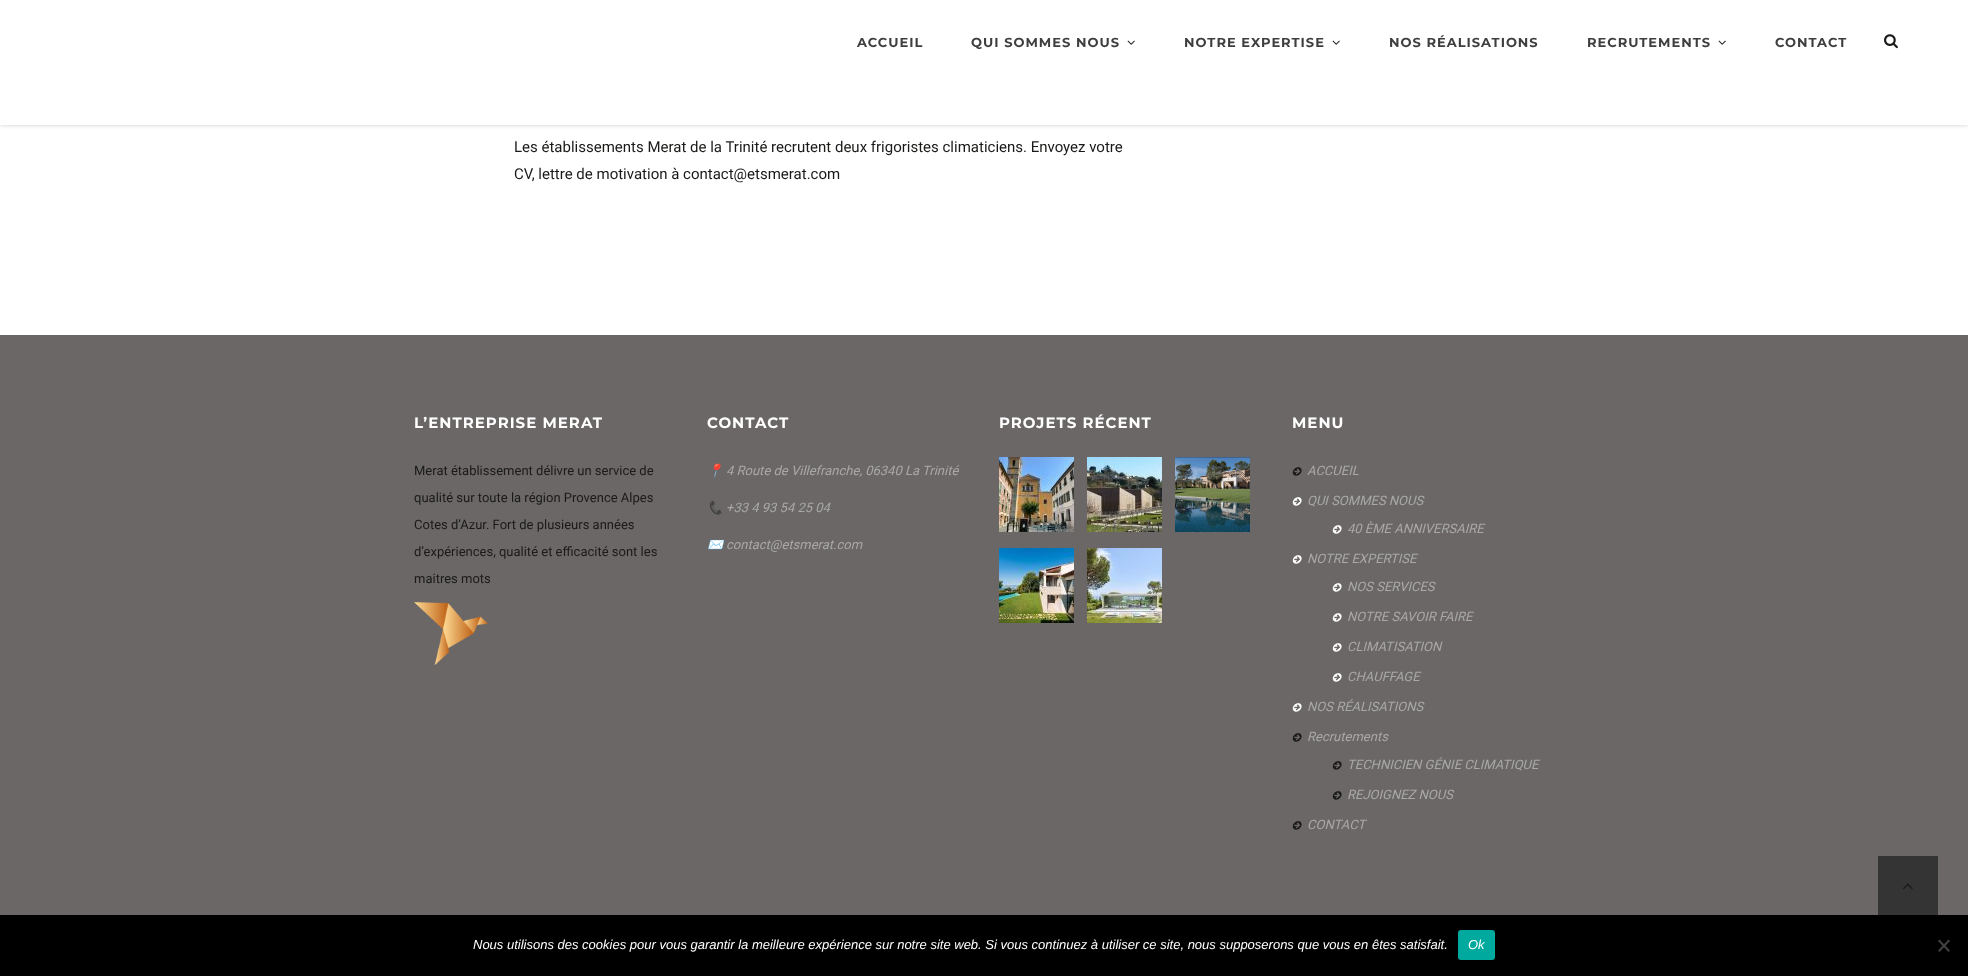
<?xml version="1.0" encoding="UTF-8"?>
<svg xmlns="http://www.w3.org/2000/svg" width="1968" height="976">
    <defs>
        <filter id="blur1" x="-50%" y="-200%" width="200%" height="500%"><feGaussianBlur stdDeviation="2"/></filter>
    </defs>
    <rect width="100%" height="100%" fill="#FFFFFF"/>
    <rect x="0" y="0" width="1968" height="125" fill="#000000" fill-opacity="0.2" filter="url(#blur1)"/>
    <rect x="0" y="0" width="1968" height="125" fill="#FFFFFF"/>
    <text x="857" y="47" font-family="Montserrat" font-size="13" font-weight="100" letter-spacing="1" fill="#3E3E3E">ACCUEIL</text>
    <text x="971" y="47" font-family="Montserrat" font-size="13" font-weight="100" letter-spacing="1" fill="#3E3E3E">QUI SOMMES NOUS</text>
    <image x="1127" y="40" width="8" height="5" href="img_01.png"/>
    <text x="1184" y="47" font-family="Montserrat" font-size="13" font-weight="100" letter-spacing="1" fill="#3E3E3E">NOTRE EXPERTISE</text>
    <image x="1332" y="40" width="8" height="5" href="img_01.png"/>
    <text x="1389" y="47" font-family="Montserrat" font-size="13" font-weight="100" letter-spacing="1" fill="#3E3E3E">NOS RÉALISATIONS</text>
    <text x="1587" y="47" font-family="Montserrat" font-size="13" font-weight="100" letter-spacing="1" fill="#3E3E3E">RECRUTEMENTS</text>
    <image x="1718" y="40" width="8" height="5" href="img_01.png"/>
    <text x="1775" y="47" font-family="Montserrat" font-size="13" font-weight="100" letter-spacing="1" fill="#3E3E3E">CONTACT</text>
    <image x="1884" y="34" width="14" height="15" href="img_02.png"/>
    <text font-family="Roboto" font-size="15" fill="#1A1A19">
        <tspan x="514" y="152">Les établissements Merat de la Trinité recrutent deux frigoristes climaticiens. Envoyez votre</tspan>
        <tspan x="514" y="179">CV, lettre de motivation à contact@etsmerat.com</tspan>
    </text>
    <rect x="0" y="335" width="1968" height="580" fill="#6B6767"/>
    <text x="414" y="428" font-family="Montserrat" font-size="15" font-weight="100" letter-spacing="1" fill="#FFFFFF">L’ENTREPRISE MERAT</text>
    <text x="414" y="475" font-family="Roboto" font-size="13" fill="#1A1A19">Merat établissement délivre un service de</text>
    <text x="414" y="502" font-family="Roboto" font-size="13" fill="#1A1A19">qualité sur toute la région Provence Alpes</text>
    <text x="414" y="529" font-family="Roboto" font-size="13" fill="#1A1A19">Cotes d’Azur. Fort de plusieurs années</text>
    <text x="414" y="556" font-family="Roboto" font-size="13" fill="#1A1A19">d’expériences, qualité et efficacité sont les</text>
    <text x="414" y="583" font-family="Roboto" font-size="13" fill="#1A1A19">maitres mots</text>
    <image x="414" y="602" width="74" height="63" href="img_03.png"/>
    <text x="707" y="428" font-family="Montserrat" font-size="15" font-weight="100" letter-spacing="1" fill="#FFFFFF">CONTACT</text>
    <text x="707" y="475" font-family="Noto Color Emoji" font-size="13" font-style="italic" fill="#1A1A19">📍</text>
    <text x="726" y="475" font-family="Roboto" font-size="13" font-style="italic" fill="#A8A8A8">4 Route de Villefranche, 06340 La Trinité</text>
    <text x="707" y="512" font-family="Noto Color Emoji" font-size="13" font-style="italic" fill="#1A1A19">📞</text>
    <text x="726" y="512" font-family="Roboto" font-size="13" font-style="italic" fill="#A8A8A8">+33 4 93 54 25 04</text>
    <text x="707" y="549" font-family="Noto Color Emoji" font-size="13" font-style="italic" fill="#1A1A19">✉️</text>
    <text x="726" y="549" font-family="Roboto" font-size="13" font-style="italic" fill="#A8A8A8">contact@etsmerat.com</text>
    <text x="999" y="428" font-family="Montserrat" font-size="15" font-weight="100" letter-spacing="1" fill="#FFFFFF">PROJETS RÉCENT</text>
    <image x="999" y="457" width="75" height="75" href="img_04.png"/>
    <image x="1087" y="457" width="75" height="75" href="img_05.png"/>
    <image x="1175" y="457" width="75" height="75" href="img_06.png"/>
    <image x="999" y="548" width="75" height="75" href="img_07.png"/>
    <image x="1087" y="548" width="75" height="75" href="img_08.png"/>
    <text x="1292" y="428" font-family="Montserrat" font-size="15" font-weight="100" letter-spacing="1" fill="#FFFFFF">MENU</text>
    <image x="1292" y="467" width="10" height="9" href="img_09.png"/>
    <text x="1307" y="475" font-family="Roboto" font-size="13" font-style="italic" fill="#A8A8A8">ACCUEIL</text>
    <image x="1292" y="497" width="10" height="9" href="img_10.png"/>
    <text x="1307" y="505" font-family="Roboto" font-size="13" font-style="italic" fill="#A8A8A8">QUI SOMMES NOUS</text>
    <image x="1332" y="525" width="10" height="9" href="img_10.png"/>
    <text x="1347" y="533" font-family="Roboto" font-size="13" font-style="italic" fill="#A8A8A8">40 ÈME ANNIVERSAIRE</text>
    <image x="1292" y="555" width="10" height="9" href="img_10.png"/>
    <text x="1307" y="563" font-family="Roboto" font-size="13" font-style="italic" fill="#A8A8A8">NOTRE EXPERTISE</text>
    <image x="1332" y="583" width="10" height="9" href="img_10.png"/>
    <text x="1347" y="591" font-family="Roboto" font-size="13" font-style="italic" fill="#A8A8A8">NOS SERVICES</text>
    <image x="1332" y="613" width="10" height="9" href="img_10.png"/>
    <text x="1347" y="621" font-family="Roboto" font-size="13" font-style="italic" fill="#A8A8A8">NOTRE SAVOIR FAIRE</text>
    <image x="1332" y="643" width="10" height="9" href="img_10.png"/>
    <text x="1347" y="651" font-family="Roboto" font-size="13" font-style="italic" fill="#A8A8A8">CLIMATISATION</text>
    <image x="1332" y="673" width="10" height="9" href="img_10.png"/>
    <text x="1347" y="681" font-family="Roboto" font-size="13" font-style="italic" fill="#A8A8A8">CHAUFFAGE</text>
    <image x="1292" y="703" width="10" height="9" href="img_10.png"/>
    <text x="1307" y="711" font-family="Roboto" font-size="13" font-style="italic" fill="#A8A8A8">NOS RÉALISATIONS</text>
    <image x="1292" y="733" width="10" height="9" href="img_09.png"/>
    <text x="1307" y="741" font-family="Roboto" font-size="13" font-style="italic" fill="#A8A8A8">Recrutements</text>
    <image x="1332" y="761" width="10" height="9" href="img_09.png"/>
    <text x="1347" y="769" font-family="Roboto" font-size="13" font-style="italic" fill="#A8A8A8">TECHNICIEN GÉNIE CLIMATIQUE</text>
    <image x="1332" y="791" width="10" height="9" href="img_09.png"/>
    <text x="1347" y="799" font-family="Roboto" font-size="13" font-style="italic" fill="#A8A8A8">REJOIGNEZ NOUS</text>
    <image x="1292" y="821" width="10" height="9" href="img_09.png"/>
    <text x="1307" y="829" font-family="Roboto" font-size="13" font-style="italic" fill="#A8A8A8">CONTACT</text>
    <rect x="1878" y="856" width="60" height="59" fill="#343434"/>
    <image x="1903" y="883" width="10" height="7" href="img_11.png"/>
    <rect x="0" y="915" width="1968" height="61" fill="#000000"/>
    <text x="473" y="949" font-family="Liberation Sans" font-size="13" font-style="italic" fill="#FFFFFF">Nous utilisons des cookies pour vous garantir la meilleure expérience sur notre site web. Si vous continuez à utiliser ce site, nous supposerons que vous en êtes satisfait.</text>
    <rect x="1458" y="930" width="37" height="30" rx="3" fill="#00A99D"/>
    <text x="1468" y="949" font-family="Liberation Sans" font-size="13" font-style="italic" fill="#FFFFFF">Ok</text>
    <path d="M 1948.5 939.5 L 1950 941 L 1939.5 952 L 1938 950.5 Z" fill="#404040"/>
    <path d="M 1938 941 L 1939.5 939.5 L 1950 950.5 L 1948.5 952 Z" fill="#404040"/>
</svg>
